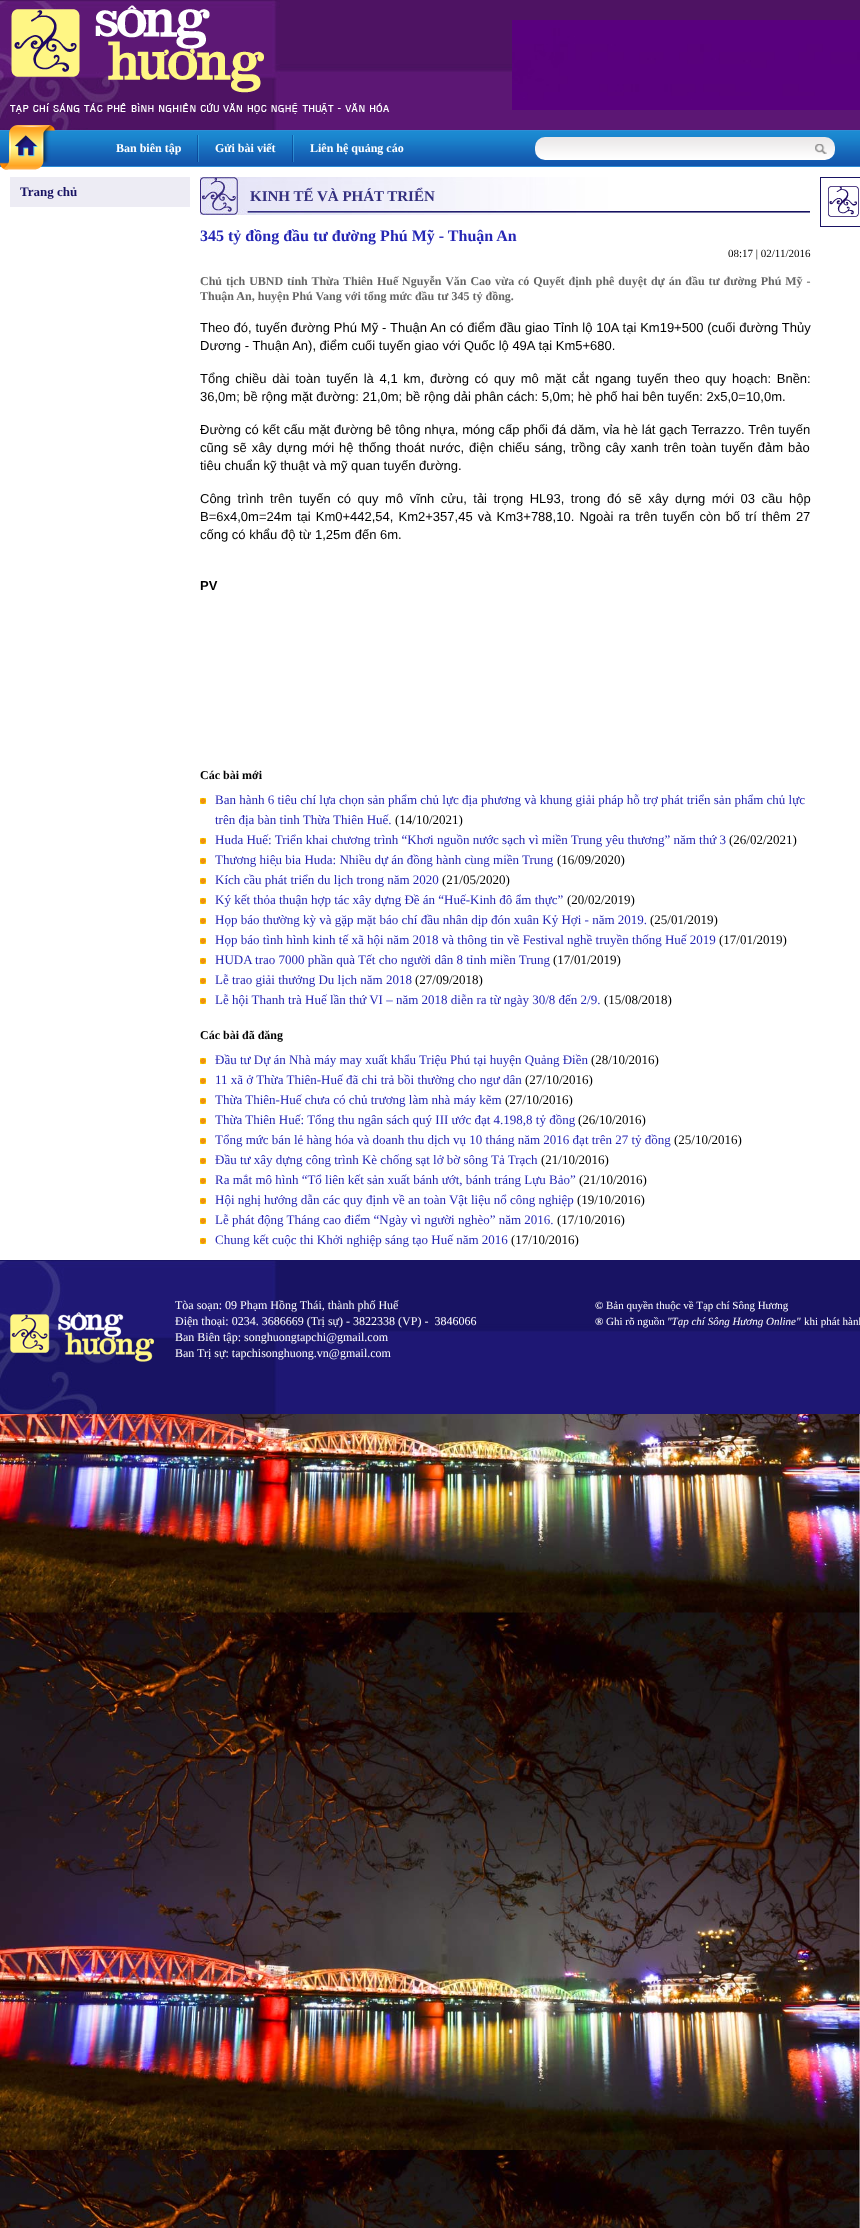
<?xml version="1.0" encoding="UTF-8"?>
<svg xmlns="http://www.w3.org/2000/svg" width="860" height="2228">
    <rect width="100%" height="100%" fill="#FFFFFF"/>
    <image x="0" y="1414" width="860" height="814" href="img_01.png"/>
    <image x="0" y="0" width="860" height="130" href="img_02.png"/>
    <image x="10" y="5" width="380" height="109" href="img_03.png"/>
    <image x="512" y="20" width="348" height="90" href="img_04.png"/>
    <rect x="0" y="166" width="860" height="1" fill="#2C8BD4"/>
    <image x="0" y="130" width="860" height="36" href="img_05.png"/>
    <image x="0" y="125" width="55" height="45" href="img_06.png"/>
    <text x="116" y="152" font-family="Liberation Serif" font-size="12" font-weight="700" fill="#FFFFFF">Ban biên tập</text>
    <image x="197" y="135" width="2" height="27" href="img_07.png"/>
    <text x="215" y="152" font-family="Liberation Serif" font-size="12" font-weight="700" fill="#FFFFFF">Gửi bài viết</text>
    <image x="292" y="135" width="2" height="27" href="img_07.png"/>
    <text x="310" y="152" font-family="Liberation Serif" font-size="12" font-weight="700" fill="#FFFFFF">Liên hệ quảng cáo</text>
    <image x="535" y="137" width="300" height="23" href="img_08.png"/>
    <image x="815" y="144" width="12" height="10" href="img_09.png"/>
    <rect x="10" y="177" width="180" height="30" fill="#EDECF4"/>
    <text x="20" y="196" font-family="Liberation Serif" font-size="13" font-weight="700" fill="#181363">Trang chủ</text>
    <image x="200" y="177" width="610" height="38" href="img_10.png"/>
    <text x="250" y="201" font-family="Liberation Serif" font-size="15" font-weight="700" fill="#34307F">KINH TẾ VÀ PHÁT TRIỂN</text>
    <text x="200" y="241" font-family="Liberation Serif" font-size="16" font-weight="700" fill="#2627B5">345 tỷ đồng đầu tư đường Phú Mỹ - Thuận An</text>
    <text x="728" y="257" font-family="Liberation Serif" font-size="11" fill="#000000">08:17 | 02/11/2016</text>
    <text font-family="Liberation Serif" font-size="12" font-weight="700" fill="#666666">
        <tspan x="200" y="285" word-spacing="0.9">Chủ tịch UBND tỉnh Thừa Thiên Huế Nguyễn Văn Cao vừa có Quyết định phê duyệt dự án đầu tư đường Phú Mỹ -</tspan>
        <tspan x="200" y="300">Thuận An, huyện Phú Vang với tổng mức đầu tư 345 tỷ đồng.</tspan>
    </text>
    <text font-family="Liberation Sans" font-size="13" fill="#000000">
        <tspan x="200" y="332" word-spacing="0.25">Theo đó, tuyến đường Phú Mỹ - Thuận An có điểm đầu giao Tỉnh lộ 10A tại Km19+500 (cuối đường Thủy</tspan>
        <tspan x="200" y="350">Dương - Thuận An), điểm cuối tuyến giao với Quốc lộ 49A tại Km5+680.</tspan>
    </text>
    <text font-family="Liberation Sans" font-size="13" fill="#000000">
        <tspan x="200" y="383" word-spacing="2.1">Tổng chiều dài toàn tuyến là 4,1 km, đường có quy mô mặt cắt ngang tuyến theo quy hoạch: Bnền:</tspan>
        <tspan x="200" y="401">36,0m; bề rộng mặt đường: 21,0m; bề rộng dải phân cách: 5,0m; hè phố hai bên tuyến: 2x5,0=10,0m.</tspan>
    </text>
    <text font-family="Liberation Sans" font-size="13" fill="#000000">
        <tspan x="200" y="434" word-spacing="0.25">Đường có kết cấu mặt đường bê tông nhựa, móng cấp phối đá dăm, vỉa hè lát gạch Terrazzo. Trên tuyến</tspan>
        <tspan x="200" y="452" word-spacing="1.25">cũng sẽ xây dựng mới hệ thống thoát nước, điện chiếu sáng, trồng cây xanh trên toàn tuyến đảm bảo</tspan>
        <tspan x="200" y="470">tiêu chuẩn kỹ thuật và mỹ quan tuyến đường.</tspan>
    </text>
    <text font-family="Liberation Sans" font-size="13" fill="#000000">
        <tspan x="200" y="503" word-spacing="2.9">Công trình trên tuyến có quy mô vĩnh cửu, tải trọng HL93, trong đó sẽ xây dựng mới 03 cầu hộp</tspan>
        <tspan x="200" y="521" word-spacing="1.5">B=6x4,0m=24m tại Km0+442,54, Km2+357,45 và Km3+788,10. Ngoài ra trên tuyến còn bố trí thêm 27</tspan>
        <tspan x="200" y="539">cống có khẩu độ từ 1,25m đến 6m.</tspan>
    </text>
    <text x="200" y="590" font-family="Liberation Sans" font-size="13" font-weight="700" fill="#000000">PV</text>
    <text x="200" y="779" font-family="Liberation Serif" font-size="12" font-weight="700" fill="#000000">Các bài mới</text>
    <image x="200" y="798" width="6" height="6" href="img_11.png"/>
    <text font-family="Liberation Serif" font-size="13" fill="#2627B5">
        <tspan x="215" y="804">Ban hành 6 tiêu chí lựa chọn sản phẩm chủ lực địa phương và khung giải pháp hỗ trợ phát triển sản phẩm chủ lực</tspan>
        <tspan x="215" y="824">trên địa bàn tỉnh Thừa Thiên Huế.</tspan>
    </text>
    <text x="395" y="824" font-family="Liberation Serif" font-size="13" fill="#000000">(14/10/2021)</text>
    <image x="200" y="838" width="6" height="6" href="img_11.png"/>
    <text x="215" y="844" font-family="Liberation Serif" font-size="13" fill="#2627B5">Huda Huế: Triển khai chương trình “Khơi nguồn nước sạch vì miền Trung yêu thương” năm thứ 3</text>
    <text x="729" y="844" font-family="Liberation Serif" font-size="13" fill="#000000">(26/02/2021)</text>
    <image x="200" y="858" width="6" height="6" href="img_11.png"/>
    <text x="215" y="864" font-family="Liberation Serif" font-size="13" fill="#2627B5">Thương hiệu bia Huda: Nhiều dự án đồng hành cùng miền Trung</text>
    <text x="557" y="864" font-family="Liberation Serif" font-size="13" fill="#000000">(16/09/2020)</text>
    <image x="200" y="878" width="6" height="6" href="img_11.png"/>
    <text x="215" y="884" font-family="Liberation Serif" font-size="13" fill="#2627B5">Kích cầu phát triển du lịch trong năm 2020</text>
    <text x="442" y="884" font-family="Liberation Serif" font-size="13" fill="#000000">(21/05/2020)</text>
    <image x="200" y="898" width="6" height="6" href="img_11.png"/>
    <text x="215" y="904" font-family="Liberation Serif" font-size="13" fill="#2627B5">Ký kết thỏa thuận hợp tác xây dựng Đề án “Huế-Kinh đô ẩm thực”</text>
    <text x="567" y="904" font-family="Liberation Serif" font-size="13" fill="#000000">(20/02/2019)</text>
    <image x="200" y="918" width="6" height="6" href="img_11.png"/>
    <text x="215" y="924" font-family="Liberation Serif" font-size="13" fill="#2627B5">Họp báo thường kỳ và gặp mặt báo chí đầu nhân dịp đón xuân Kỷ Hợi - năm 2019.</text>
    <text x="650" y="924" font-family="Liberation Serif" font-size="13" fill="#000000">(25/01/2019)</text>
    <image x="200" y="938" width="6" height="6" href="img_11.png"/>
    <text x="215" y="944" font-family="Liberation Serif" font-size="13" fill="#2627B5">Họp báo tình hình kinh tế xã hội năm 2018 và thông tin về Festival nghề truyền thống Huế 2019</text>
    <text x="719" y="944" font-family="Liberation Serif" font-size="13" fill="#000000">(17/01/2019)</text>
    <image x="200" y="958" width="6" height="6" href="img_11.png"/>
    <text x="215" y="964" font-family="Liberation Serif" font-size="13" fill="#2627B5">HUDA trao 7000 phần quà Tết cho người dân 8 tỉnh miền Trung</text>
    <text x="553" y="964" font-family="Liberation Serif" font-size="13" fill="#000000">(17/01/2019)</text>
    <image x="200" y="978" width="6" height="6" href="img_11.png"/>
    <text x="215" y="984" font-family="Liberation Serif" font-size="13" fill="#2627B5">Lễ trao giải thưởng Du lịch năm 2018</text>
    <text x="415" y="984" font-family="Liberation Serif" font-size="13" fill="#000000">(27/09/2018)</text>
    <image x="200" y="998" width="6" height="6" href="img_11.png"/>
    <text x="215" y="1004" font-family="Liberation Serif" font-size="13" fill="#2627B5">Lễ hội Thanh trà Huế lần thứ VI – năm 2018 diễn ra từ ngày 30/8 đến 2/9.</text>
    <text x="604" y="1004" font-family="Liberation Serif" font-size="13" fill="#000000">(15/08/2018)</text>
    <text x="200" y="1039" font-family="Liberation Serif" font-size="12" font-weight="700" fill="#000000">Các bài đã đăng</text>
    <image x="200" y="1058" width="6" height="6" href="img_11.png"/>
    <text x="215" y="1064" font-family="Liberation Serif" font-size="13" fill="#2627B5">Đầu tư Dự án Nhà máy may xuất khẩu Triệu Phú tại huyện Quảng Điền</text>
    <text x="591" y="1064" font-family="Liberation Serif" font-size="13" fill="#000000">(28/10/2016)</text>
    <image x="200" y="1078" width="6" height="6" href="img_11.png"/>
    <text x="215" y="1084" font-family="Liberation Serif" font-size="13" fill="#2627B5">11 xã ở Thừa Thiên-Huế đã chi trả bồi thường cho ngư dân</text>
    <text x="525" y="1084" font-family="Liberation Serif" font-size="13" fill="#000000">(27/10/2016)</text>
    <image x="200" y="1098" width="6" height="6" href="img_11.png"/>
    <text x="215" y="1104" font-family="Liberation Serif" font-size="13" fill="#2627B5">Thừa Thiên-Huế chưa có chủ trương làm nhà máy kẽm</text>
    <text x="505" y="1104" font-family="Liberation Serif" font-size="13" fill="#000000">(27/10/2016)</text>
    <image x="200" y="1118" width="6" height="6" href="img_11.png"/>
    <text x="215" y="1124" font-family="Liberation Serif" font-size="13" fill="#2627B5">Thừa Thiên Huế: Tổng thu ngân sách quý III ước đạt 4.198,8 tỷ đồng</text>
    <text x="578" y="1124" font-family="Liberation Serif" font-size="13" fill="#000000">(26/10/2016)</text>
    <image x="200" y="1138" width="6" height="6" href="img_11.png"/>
    <text x="215" y="1144" font-family="Liberation Serif" font-size="13" fill="#2627B5">Tổng mức bán lẻ hàng hóa và doanh thu dịch vụ 10 tháng năm 2016 đạt trên 27 tỷ đồng</text>
    <text x="674" y="1144" font-family="Liberation Serif" font-size="13" fill="#000000">(25/10/2016)</text>
    <image x="200" y="1158" width="6" height="6" href="img_11.png"/>
    <text x="215" y="1164" font-family="Liberation Serif" font-size="13" fill="#2627B5">Đầu tư xây dựng công trình Kè chống sạt lở bờ sông Tả Trạch</text>
    <text x="541" y="1164" font-family="Liberation Serif" font-size="13" fill="#000000">(21/10/2016)</text>
    <image x="200" y="1178" width="6" height="6" href="img_11.png"/>
    <text x="215" y="1184" font-family="Liberation Serif" font-size="13" fill="#2627B5">Ra mắt mô hình “Tổ liên kết sản xuất bánh ướt, bánh tráng Lựu Bảo”</text>
    <text x="579" y="1184" font-family="Liberation Serif" font-size="13" fill="#000000">(21/10/2016)</text>
    <image x="200" y="1198" width="6" height="6" href="img_11.png"/>
    <text x="215" y="1204" font-family="Liberation Serif" font-size="13" fill="#2627B5">Hội nghị hướng dẫn các quy định về an toàn Vật liệu nổ công nghiệp</text>
    <text x="577" y="1204" font-family="Liberation Serif" font-size="13" fill="#000000">(19/10/2016)</text>
    <image x="200" y="1218" width="6" height="6" href="img_11.png"/>
    <text x="215" y="1224" font-family="Liberation Serif" font-size="13" fill="#2627B5">Lễ phát động Tháng cao điểm “Ngày vì người nghèo” năm 2016.</text>
    <text x="557" y="1224" font-family="Liberation Serif" font-size="13" fill="#000000">(17/10/2016)</text>
    <image x="200" y="1238" width="6" height="6" href="img_11.png"/>
    <text x="215" y="1244" font-family="Liberation Serif" font-size="13" fill="#2627B5">Chung kết cuộc thi Khởi nghiệp sáng tạo Huế năm 2016</text>
    <text x="511" y="1244" font-family="Liberation Serif" font-size="13" fill="#000000">(17/10/2016)</text>
    <image x="820" y="177" width="40" height="50" href="img_12.png"/>
    <image x="0" y="1260" width="860" height="154" href="img_13.png"/>
    <image x="10" y="1312" width="144" height="50" href="img_14.png"/>
    <text font-family="Liberation Serif" font-size="12" fill="#FFFFFF" xml:space="preserve"><tspan x="175" y="1309">Tòa soạn: 09 Phạm Hồng Thái, thành phố Huế</tspan><tspan x="175" y="1325">Điện thoại: 0234. 3686669 (Trị sự) - 3822338 (VP) -  3846066</tspan><tspan x="175" y="1341">Ban Biên tập: songhuongtapchi@gmail.com</tspan><tspan x="175" y="1357">Ban Trị sự: tapchisonghuong.vn@gmail.com</tspan></text>
    <text x="595" y="1309" font-family="Liberation Serif" font-size="11" font-weight="700" fill="#FFFFFF">©</text>
    <text x="606" y="1309" font-family="Liberation Serif" font-size="11" fill="#FFFFFF">Bản quyền thuộc về Tạp chí Sông Hương</text>
    <text x="595" y="1325" font-family="Liberation Serif" font-size="11" font-weight="700" fill="#FFFFFF">®</text>
    <text x="606" y="1325" font-family="Liberation Serif" font-size="11" fill="#FFFFFF">Ghi rõ nguồn</text>
    <text x="667" y="1325" font-family="Liberation Serif" font-size="11" font-style="italic" fill="#FFFFFF">"Tạp chí Sông Hương Online"</text>
    <text x="804" y="1325" font-family="Liberation Serif" font-size="11" fill="#FFFFFF">khi phát hành</text>
</svg>
